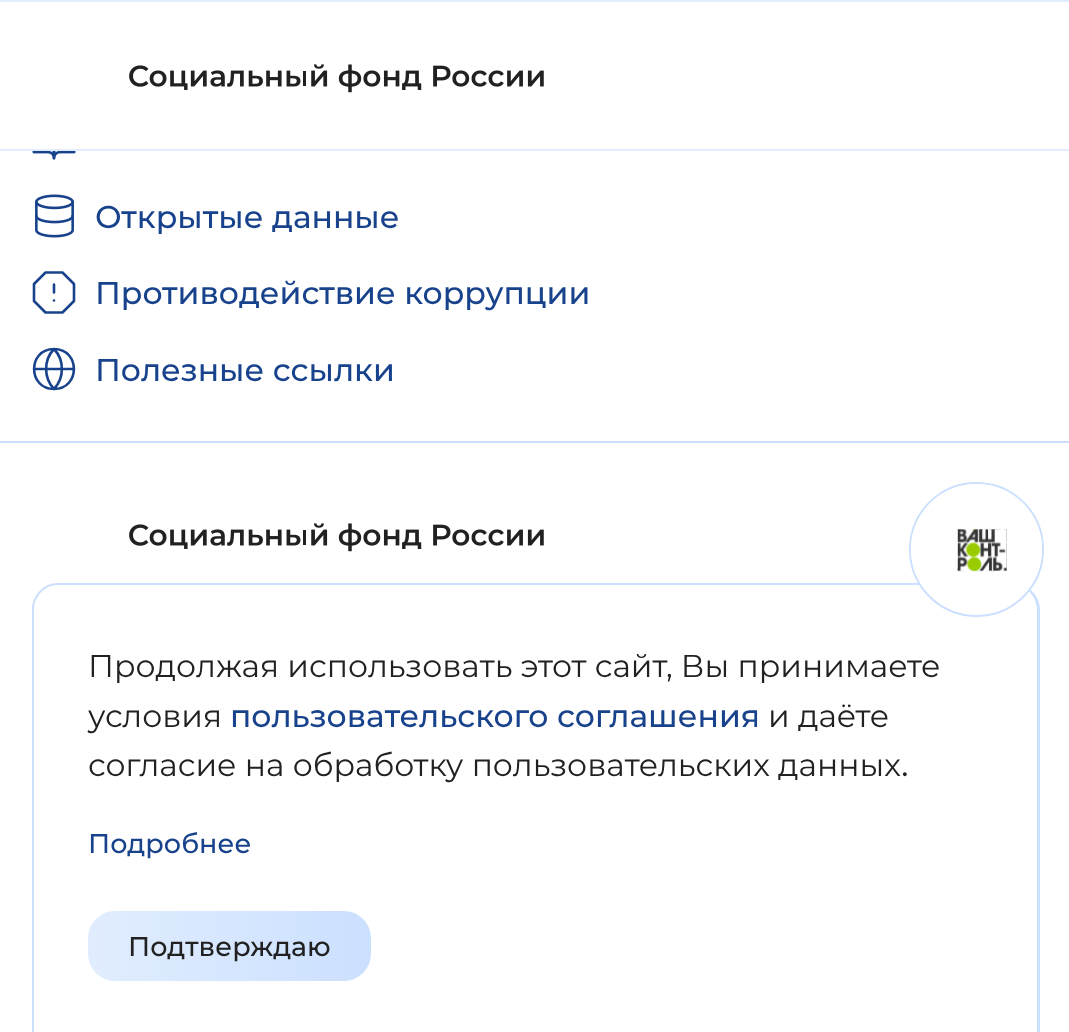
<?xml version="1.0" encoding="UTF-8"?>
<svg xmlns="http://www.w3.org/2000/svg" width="1069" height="1032">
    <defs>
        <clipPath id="clip1"><rect x="911" y="484" width="131" height="130" rx="65"/></clipPath>
        <linearGradient id="g1" gradientUnits="userSpaceOnUse" x1="920" y1="549" x2="871" y2="549"><stop offset="0" stop-color="#FFFFFF" stop-opacity="0.53"/><stop offset="1" stop-color="#FFFFFF" stop-opacity="0"/></linearGradient>
        <linearGradient id="g2" gradientUnits="userSpaceOnUse" x1="88" y1="946" x2="371" y2="946"><stop offset="0" stop-color="#E1EDFE"/><stop offset="1" stop-color="#CBE0FF"/></linearGradient>
    </defs>
    <rect width="100%" height="100%" fill="#FFFFFF"/>
    <rect x="0" y="149" width="1069" height="2" fill="#E1EDFE"/>
    <rect x="0" y="0" width="1069" height="2" fill="#E1EDFE"/>
    <image x="129" y="64" width="415" height="29" href="img_01.png"/>
    <image x="32" y="151" width="44" height="9" href="img_02.png"/>
    <image x="35" y="194" width="39" height="44" href="img_03.png"/>
    <text x="95" y="228" font-family="Montserrat" font-size="31.5" font-weight="500" fill="#18438C">Открытые данные</text>
    <path d="M 45.5 272.5 H 62.5 L 74 284 V 301 L 62.5 312.5 H 45.5 L 34 301 V 284 Z M 54 284.5 V 292.5 M 54 300.5 H 54" fill="none" stroke="#18438C" stroke-width="2.6" stroke-linecap="round" stroke-linejoin="round"/>
    <text x="95" y="304" font-family="Montserrat" font-size="31.5" font-weight="500" fill="#18438C">Противодействие коррупции</text>
    <path d="M 54 389 C 80.5 389 80.5 349 54 349 C 27.5 349 27.5 389 54 389 Z M 34 369 H 74 M 54 349 C 64.5 360 64.5 378 54 389 C 43.5 378 43.5 360 54 349 Z" fill="none" stroke="#18438C" stroke-width="2.6" stroke-linecap="round" stroke-linejoin="round"/>
    <text x="95" y="381" font-family="Montserrat" font-size="31.5" font-weight="500" fill="#18438C">Полезные ссылки</text>
    <rect x="0" y="441" width="1069" height="2" fill="#CDDEFB"/>
    <image x="129" y="523" width="415" height="29" href="img_01.png"/>
    <path d="M 58 583 H 1012 C 1027 583 1040 595 1040 610 V 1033 H 32 V 610 C 32 595 44 583 58 583 Z M 58 585 H 1012 C 1026 585 1037 596 1037 610 V 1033 H 34 V 610 C 34 596 45 585 58 585 Z" fill="#CBE0FF" fill-rule="evenodd"/>
    <circle cx="976.5" cy="549.5" r="66.5" fill="#FFFFFF" stroke="#CBE0FF" stroke-width="2"/>
    <rect x="911" y="484" width="131" height="130" rx="65" fill="#FFFFFF"/>
    <g clip-path="url(#clip1)">
        <rect x="911" y="516" width="9" height="66" fill="url(#g1)"/>
    </g>
    <image x="957" y="529" width="50" height="43" href="img_04.png"/>
    <text font-family="Montserrat" font-size="31.5" fill="#212121">
        <tspan x="88" y="677">Продолжая использовать этот сайт, Вы принимаете</tspan>
        <tspan x="88" y="727">условия</tspan>
    </text>
    <text x="230" y="727" font-family="Montserrat" font-size="31.5" font-weight="500" fill="#18438C">пользовательского соглашения</text>
    <text x="768" y="727" font-family="Montserrat" font-size="31.5" fill="#212121">и даёте</text>
    <text x="88" y="776" font-family="Montserrat" font-size="31.5" fill="#212121">согласие на обработку пользовательских данных</text>
    <text x="901" y="776" font-family="Montserrat" font-size="36" fill="#212121">.</text>
    <text x="88" y="853" font-family="Montserrat" font-size="27" font-weight="500" fill="#18438C">Подробнее</text>
    <rect x="88" y="911" width="283" height="70" rx="27" fill="url(#g2)"/>
    <text x="128" y="956" font-family="Montserrat" font-size="27" font-weight="500" fill="#212121">Подтверждаю</text>
</svg>
